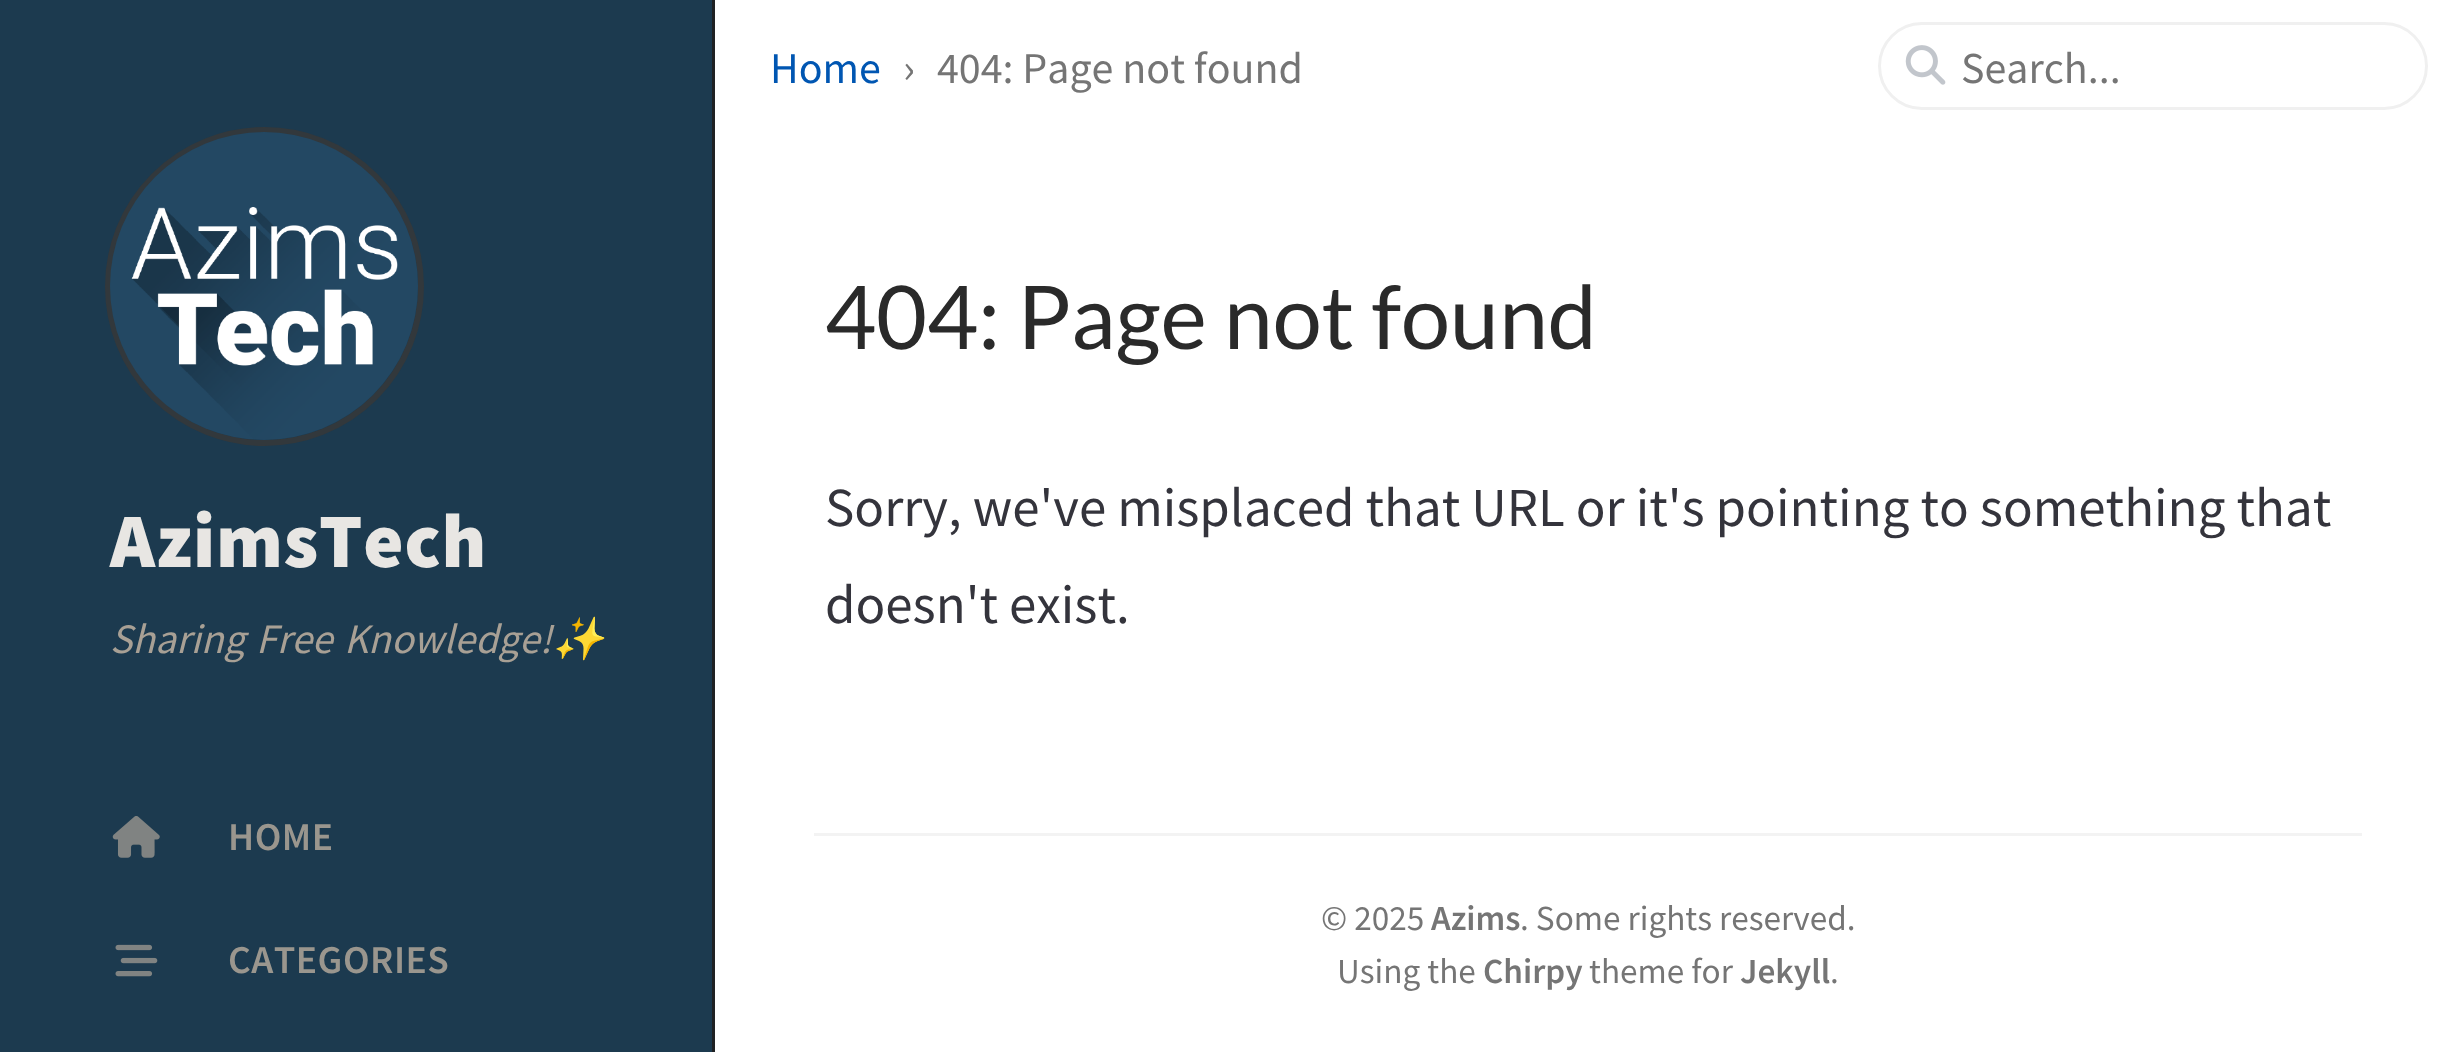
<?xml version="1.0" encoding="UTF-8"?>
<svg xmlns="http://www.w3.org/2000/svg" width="2459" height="1052">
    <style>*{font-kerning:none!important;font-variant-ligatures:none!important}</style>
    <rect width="100%" height="100%" fill="#FFFFFF"/>
    <rect x="0" y="0" width="712" height="1052" fill="#1C3A4F"/>
    <rect x="712" y="0" width="3" height="1052" fill="#1F2123"/>
    <circle cx="264.5" cy="286.5" r="156.5" fill="none" stroke="#32383C" stroke-width="6"/>
    <image x="110" y="132" width="308" height="308" href="img_01.png"/>
    <text x="110" y="567" font-family="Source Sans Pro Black" font-size="77" font-weight="900" letter-spacing="0.75" fill="#E8E6E3">AzimsTech</text>
    <text x="110" y="653" word-spacing="3" font-family="Source Sans Pro" font-size="41.75" font-style="italic" fill="#A8A095">Sharing Free Knowledge!</text>
    <text x="552" y="653" font-family="Noto Color Emoji" font-size="41.75" font-style="italic" fill="#A8A095">✨</text>
    <image x="112" y="816" width="48" height="42" href="img_02.png"/>
    <text x="228" y="850" font-family="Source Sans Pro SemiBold" font-size="39.5" font-weight="600" letter-spacing="0.5" fill="#9A968E">HOME</text>
    <image x="115" y="944" width="43" height="33" href="img_03.png"/>
    <text x="228" y="973" font-family="Source Sans Pro SemiBold" font-size="39.5" font-weight="600" letter-spacing="0.5" fill="#9A968E">CATEGORIES</text>
    <text x="770" y="83" font-family="Source Sans Pro" font-size="44" fill="#0056B2">Home</text>
    <text x="903" y="83" font-family="Source Sans Pro" font-size="44" fill="#757575">›</text>
    <text x="937" y="83" font-family="Source Sans Pro" font-size="44" fill="#757575">404: Page not found</text>
    <rect x="1879.5" y="23.5" width="547" height="85" rx="42.5" fill="none" stroke="#F0F0F0" stroke-width="3"/>
    <image x="1905" y="45" width="41" height="40" href="img_04.png"/>
    <text x="1961" y="83" font-family="Source Sans Pro" font-size="44" fill="#757575">Search...</text>
    <text x="825" y="349" font-family="Lato" font-size="88" fill="#2A2A2A">404: Page not found</text>
    <text font-family="Source Sans Pro" font-size="55" fill="#34343C">
        <tspan x="825" y="526">Sorry, we've misplaced that URL or it's pointing to something that</tspan>
        <tspan x="825" y="623">doesn't exist.</tspan>
    </text>
    <rect x="814" y="833" width="1548" height="3" fill="#F3F3F3"/>
    <text x="1321" y="930" font-family="Source Sans Pro" font-size="35.25" fill="#757575">© 2025</text>
    <text x="1431" y="930" font-family="Source Sans Pro SemiBold" font-size="35.25" font-weight="600" fill="#757575">Azims</text>
    <text x="1520" y="930" font-family="Source Sans Pro" font-size="35.25" fill="#757575">. Some rights reserved.</text>
    <text x="1337" y="983" font-family="Source Sans Pro" font-size="35.25" fill="#757575">Using the</text>
    <text x="1483" y="983" font-family="Source Sans Pro SemiBold" font-size="35.25" font-weight="600" fill="#757575">Chirpy</text>
    <text x="1589" y="983" font-family="Source Sans Pro" font-size="35.25" fill="#757575">theme for</text>
    <text x="1740" y="983" font-family="Source Sans Pro SemiBold" font-size="35.25" font-weight="600" fill="#757575">Jekyll</text>
    <text x="1830" y="983" font-family="Source Sans Pro" font-size="35.25" fill="#757575">.</text>
</svg>
